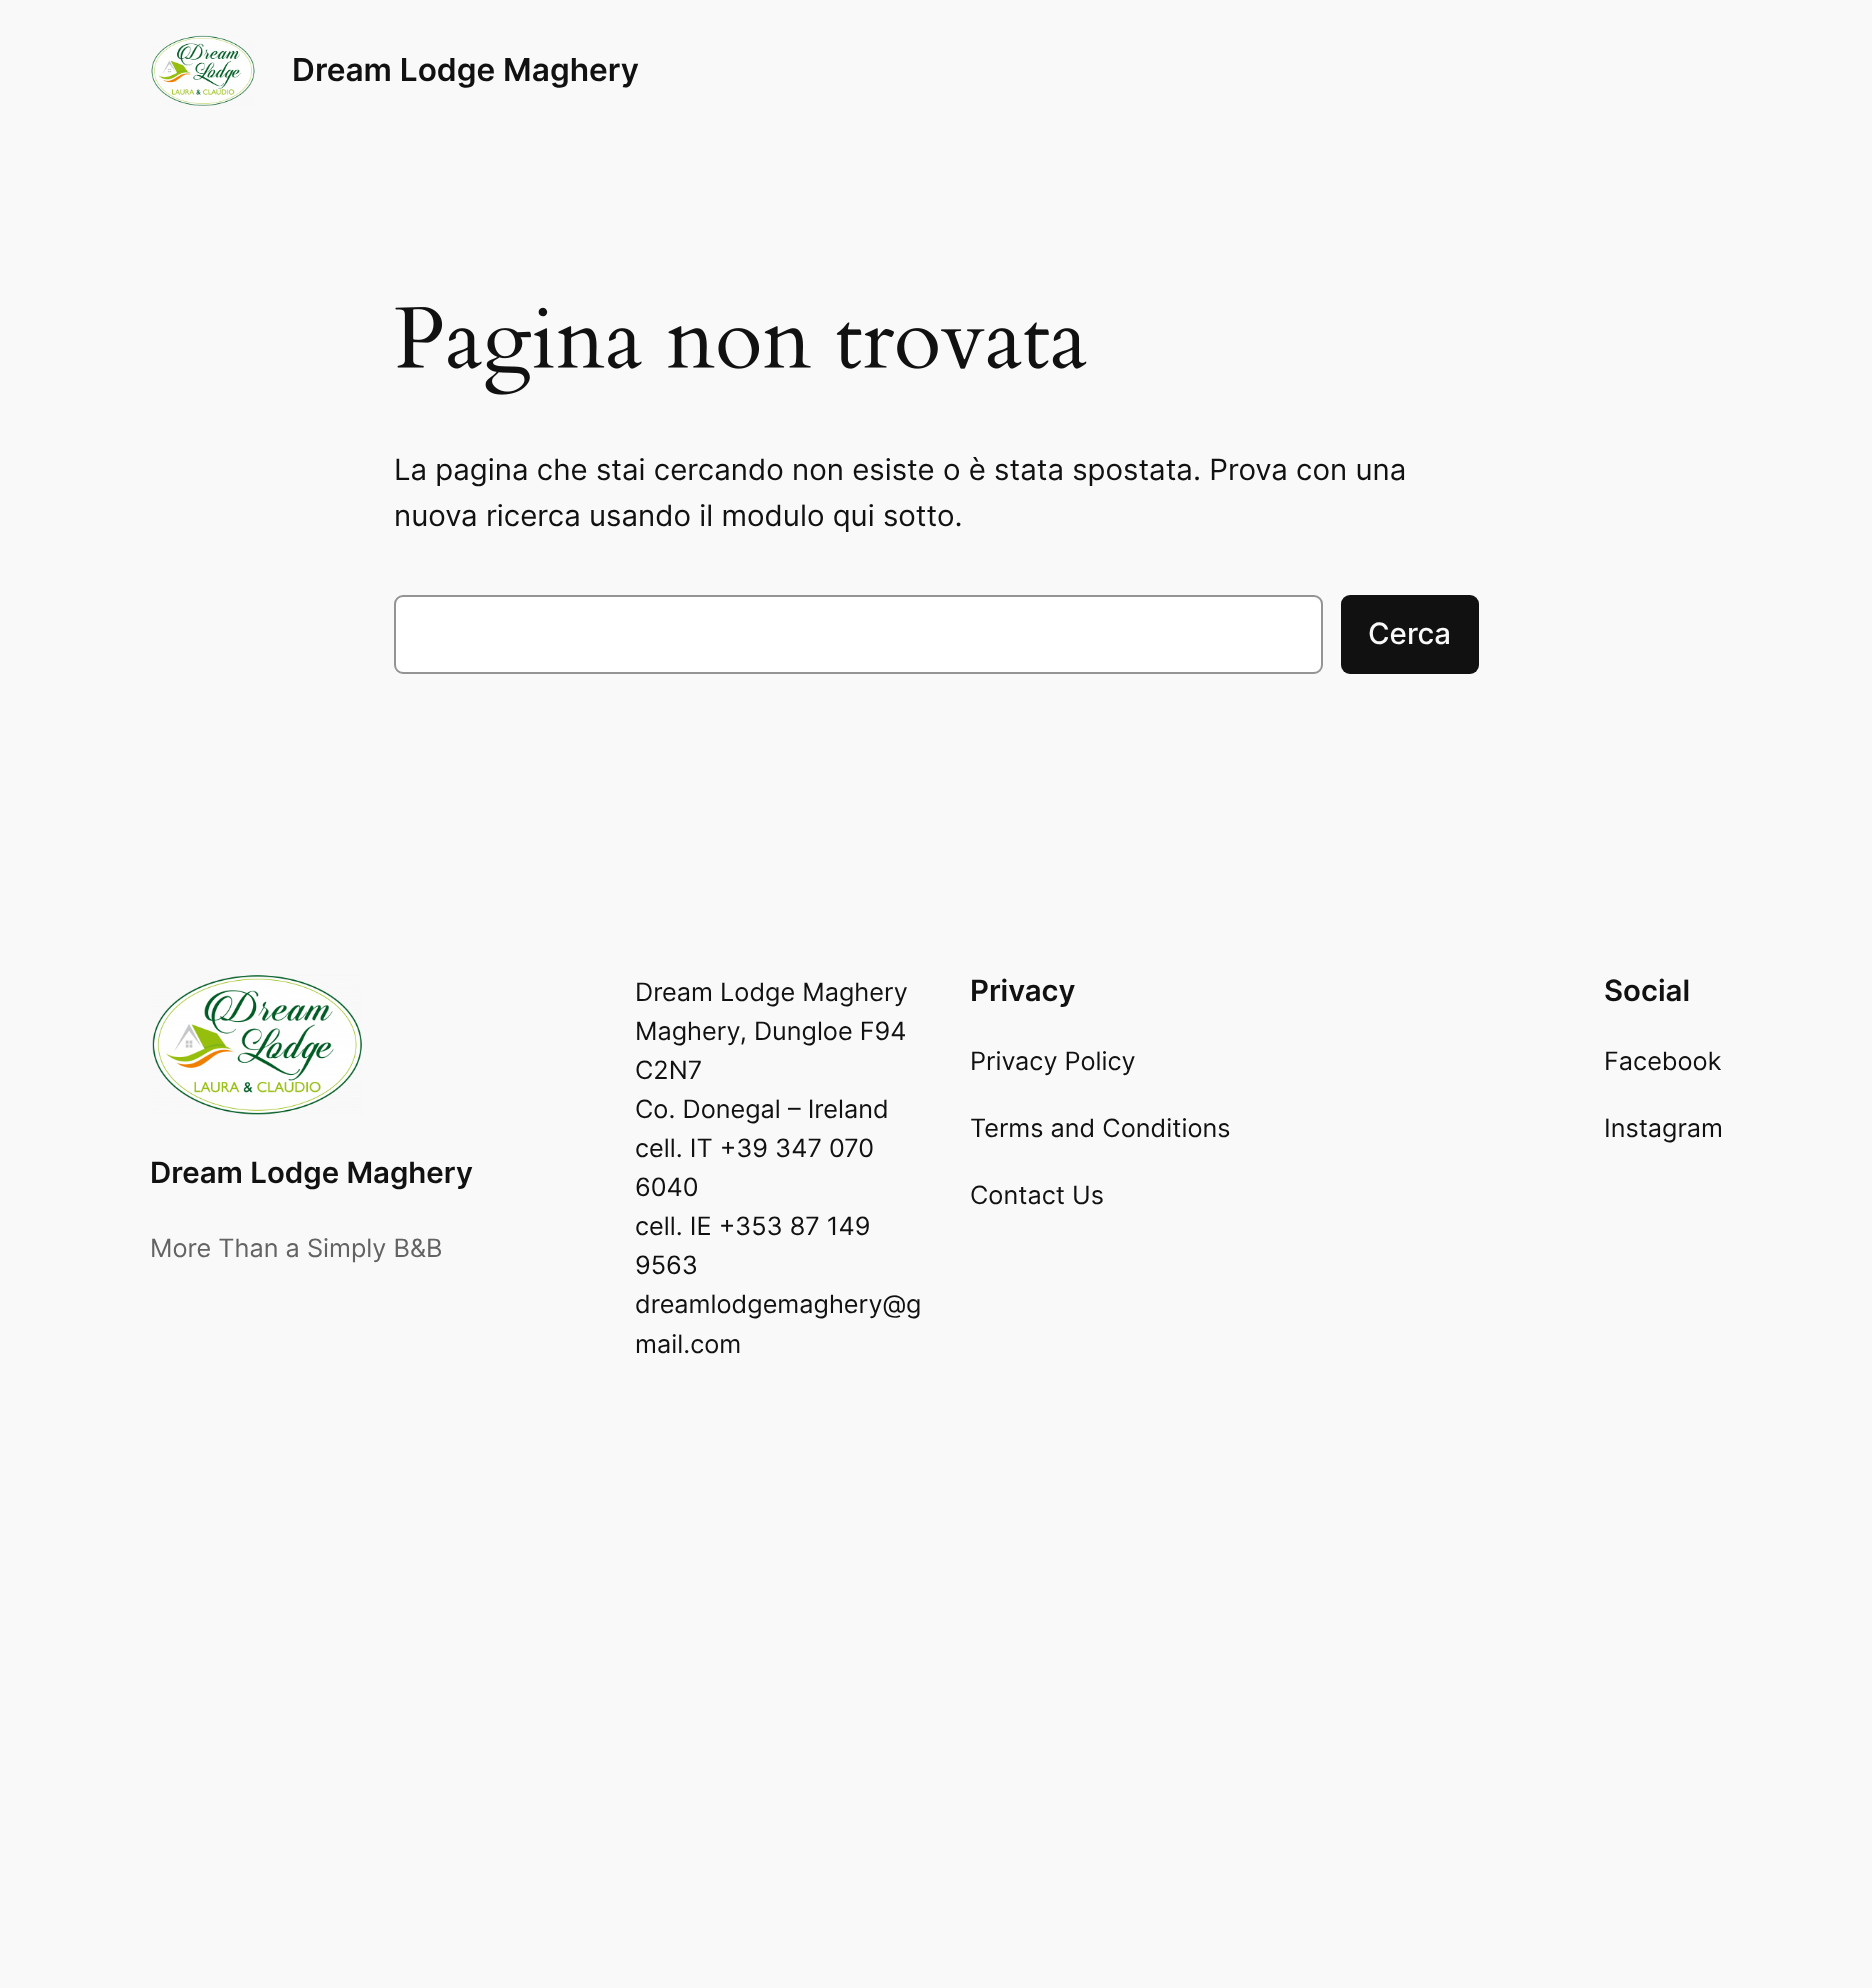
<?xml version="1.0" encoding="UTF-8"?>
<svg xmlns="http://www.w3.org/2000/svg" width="1872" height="1988">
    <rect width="100%" height="100%" fill="#F9F9F9"/>
    <image x="151" y="35" width="104" height="71" href="img_01.png"/>
    <text x="292" y="81" font-family="Inter" font-size="31.6" font-weight="600" fill="#111111">Dream Lodge Maghery</text>
    <image x="395" y="307" width="692" height="88" href="img_02.png"/>
    <text font-family="Inter" font-size="29.4" fill="#111111">
        <tspan x="394" y="480">La pagina che stai cercando non esiste o è stata spostata. Prova con una</tspan>
        <tspan x="394" y="526">nuova ricerca usando il modulo qui sotto.</tspan>
    </text>
    <rect x="395" y="596" width="927" height="77" rx="8" fill="#FFFFFF" stroke="#949494" stroke-width="2"/>
    <rect x="1341" y="595" width="138" height="79" rx="9" fill="#111111"/>
    <text x="1368" y="644" font-family="Inter" font-size="29.4" font-weight="500" fill="#F9F9F9">Cerca</text>
    <image x="152" y="975" width="210" height="140" href="img_03.png"/>
    <text x="150" y="1183" font-family="Inter" font-size="29.4" font-weight="600" fill="#111111">Dream Lodge Maghery</text>
    <text x="150" y="1257" font-family="Inter" font-size="25.25" fill="#636363">More Than a Simply B&amp;B</text>
    <text font-family="Inter" font-size="25.25" fill="#111111">
        <tspan x="635" y="1001">Dream Lodge Maghery</tspan>
        <tspan x="635" y="1040">Maghery, Dungloe F94</tspan>
        <tspan x="635" y="1079">C2N7</tspan>
        <tspan x="635" y="1118">Co. Donegal – Ireland</tspan>
        <tspan x="635" y="1157">cell. IT +39 347 070</tspan>
        <tspan x="635" y="1196">6040</tspan>
        <tspan x="635" y="1235">cell. IE +353 87 149</tspan>
        <tspan x="635" y="1274">9563</tspan>
        <tspan x="635" y="1313">dreamlodgemaghery@g</tspan>
        <tspan x="635" y="1353">mail.com</tspan>
    </text>
    <text x="970" y="1001" font-family="Inter" font-size="29.4" font-weight="600" fill="#111111">Privacy</text>
    <text x="970" y="1070" font-family="Inter" font-size="25.25" fill="#111111">Privacy Policy</text>
    <text x="970" y="1137" font-family="Inter" font-size="25.25" fill="#111111">Terms and Conditions</text>
    <text x="970" y="1204" font-family="Inter" font-size="25.25" fill="#111111">Contact Us</text>
    <text x="1604" y="1001" font-family="Inter" font-size="29.4" font-weight="600" fill="#111111">Social</text>
    <text x="1604" y="1070" font-family="Inter" font-size="25.25" fill="#111111">Facebook</text>
    <text x="1604" y="1137" font-family="Inter" font-size="25.25" fill="#111111">Instagram</text>
</svg>
